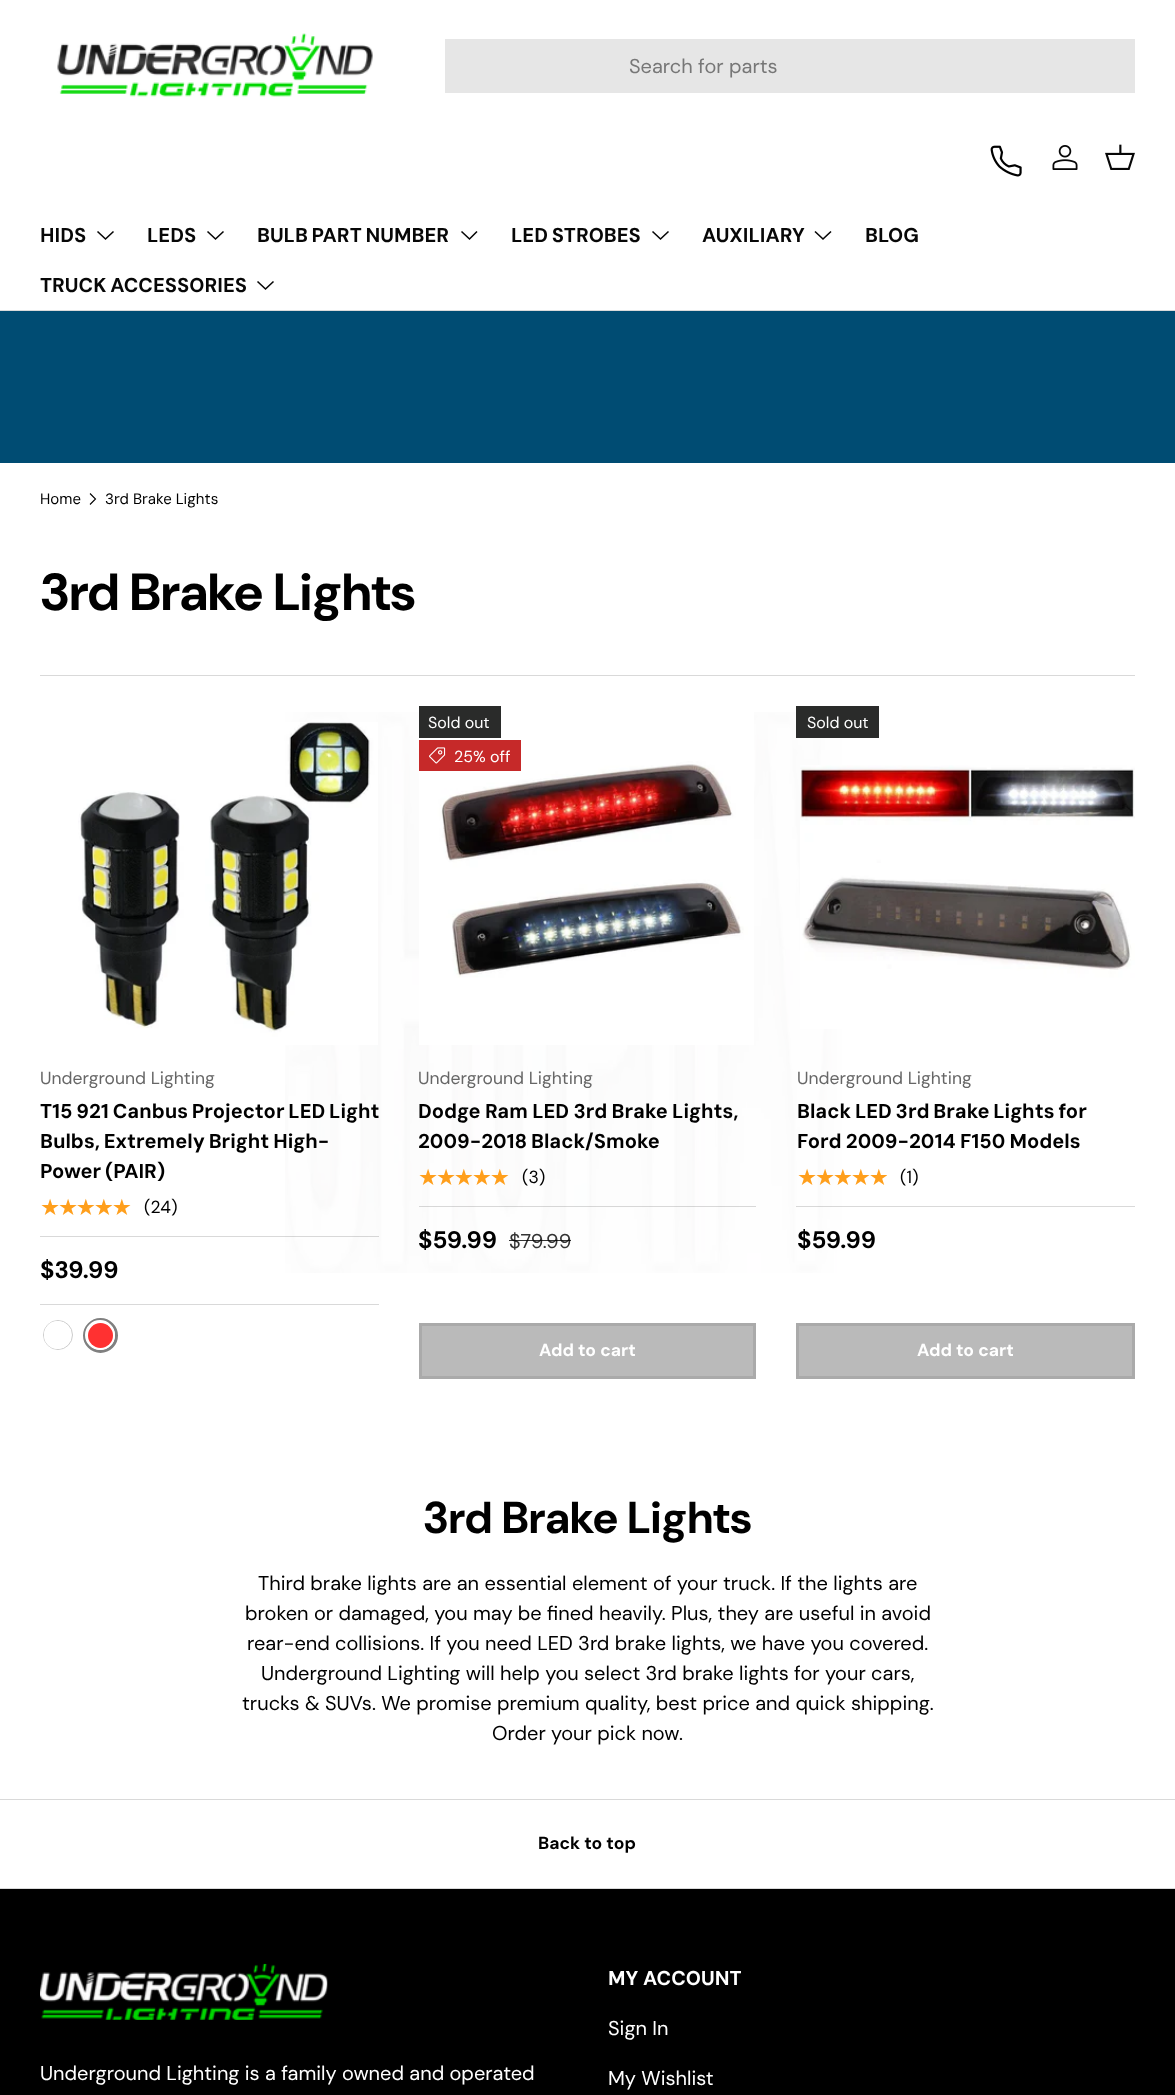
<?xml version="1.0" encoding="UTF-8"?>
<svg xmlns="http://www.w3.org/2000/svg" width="1175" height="2095">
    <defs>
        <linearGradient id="g1" gradientUnits="userSpaceOnUse" x1="40" y1="1208" x2="131" y2="1208"><stop offset="1" stop-color="#FF9F1C"/><stop offset="1" stop-color="#FFECD2"/></linearGradient>
        <linearGradient id="g2" gradientUnits="userSpaceOnUse" x1="418" y1="1178" x2="509" y2="1178"><stop offset="1" stop-color="#FF9F1C"/><stop offset="1" stop-color="#FDEAD0"/></linearGradient>
        <linearGradient id="g3" gradientUnits="userSpaceOnUse" x1="797" y1="1178" x2="887" y2="1178"><stop offset="1" stop-color="#FF9F1C"/><stop offset="1" stop-color="#FEEBD1"/></linearGradient>
    </defs>
    <rect width="100%" height="100%" fill="#FFFFFF"/>
    <rect x="0" y="310" width="1175" height="1" fill="#DADADA"/>
    <image x="57" y="33" width="316" height="64" href="img_01.png"/>
    <rect x="445" y="39" width="690" height="54" fill="#E6E6E6"/>
    <text x="629" y="73" font-family="DM Sans" font-size="20" fill="#777777">Search for parts</text>
    <image x="990" y="145" width="32" height="32" href="img_02.png"/>
    <image x="1052" y="145" width="26" height="25" href="img_03.png"/>
    <image x="1105" y="144" width="30" height="26" href="img_04.png"/>
    <text x="40" y="242" font-family="'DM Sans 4'" font-size="20" font-weight="700" fill="#070707">HIDS</text>
    <path d="M 113.5 231.5 L 105.5 239 L 97.5 231.5" fill="none" stroke="#070707" stroke-width="1.6"/>
    <text x="147" y="242" font-family="'DM Sans 4'" font-size="20" font-weight="700" fill="#070707">LEDS</text>
    <path d="M 223.5 231.5 L 215.5 239 L 207.5 231.5" fill="none" stroke="#070707" stroke-width="1.6"/>
    <text x="257" y="242" word-spacing="-1" font-family="'DM Sans 4'" font-size="20" font-weight="700" fill="#070707">BULB PART NUMBER</text>
    <path d="M 477 231.5 L 469.5 239 L 461.5 231.5" fill="none" stroke="#070707" stroke-width="1.6"/>
    <text x="511" y="242" word-spacing="-1" font-family="'DM Sans 4'" font-size="20" font-weight="700" fill="#070707">LED STROBES</text>
    <path d="M 668.5 231.5 L 660.5 239 L 652.5 231.5" fill="none" stroke="#070707" stroke-width="1.6"/>
    <text x="702" y="242" font-family="'DM Sans 4'" font-size="20" font-weight="700" fill="#070707">AUXILIARY</text>
    <path d="M 831 231.5 L 823 239 L 815 231.5" fill="none" stroke="#070707" stroke-width="1.6"/>
    <text x="865" y="242" font-family="'DM Sans 4'" font-size="20" font-weight="700" fill="#070707">BLOG</text>
    <text x="40" y="292" word-spacing="-1" font-family="'DM Sans 4'" font-size="20" font-weight="700" fill="#070707">TRUCK ACCESSORIES</text>
    <path d="M 273.5 281.5 L 265.5 289 L 257.5 281.5" fill="none" stroke="#070707" stroke-width="1.6"/>
    <rect x="0" y="311" width="1175" height="152" fill="#004C73"/>
    <text x="40" y="504" font-family="'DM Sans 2'" font-size="15" fill="#000000">Home</text>
    <path d="M 90 493.5 L 95.5 499 L 90 504.5" fill="none" stroke="#000000" stroke-width="1.1"/>
    <text x="105" y="504" font-family="'DM Sans 2'" font-size="15" fill="#000000">3rd Brake Lights</text>
    <text x="40" y="610" font-family="DM Sans" font-size="52" font-weight="700" fill="#000000">3rd Brake Lights</text>
    <rect x="40" y="675" width="1095" height="1" fill="#D9D9D9"/>
    <image x="285" y="712" width="557" height="561" href="img_09.png"/>
    <image x="78" y="722" width="300" height="323" href="img_05.png"/>
    <text x="40" y="1084" font-family="'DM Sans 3'" font-size="17.5" fill="#666666">Underground Lighting</text>
    <text font-family="'DM Sans 4'" font-size="20" font-weight="700" fill="#000000">
        <tspan x="40" y="1118" word-spacing="-1">T15 921 Canbus Projector LED Light</tspan>
        <tspan x="40" y="1148" word-spacing="-1">Bulbs, Extremely Bright High-</tspan>
        <tspan x="40" y="1178" word-spacing="-1">Power (PAIR)</tspan>
    </text>
    <text x="40" y="1215" font-family="DejaVu Sans" font-size="22.5" letter-spacing="-2.25" fill="url(#g1)">★★★★★</text>
    <text x="144" y="1213" font-family="'DM Sans 3'" font-size="17.5" fill="#000000">(24)</text>
    <rect x="40" y="1236" width="339" height="1" fill="#000000" fill-opacity="0.15"/>
    <text x="40" y="1278" font-family="'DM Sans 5'" font-size="24" font-weight="700" fill="#000000">$39.99</text>
    <rect x="40" y="1304" width="339" height="1" fill="#D9D9D9"/>
    <circle cx="58" cy="1335" r="14.5" fill="none" stroke="#CCCCCC"/>
    <rect x="44" y="1321" width="27" height="28" rx="13.5" fill="#FFFFFF"/>
    <circle cx="100.5" cy="1335.5" r="16" fill="none" stroke="#808080" stroke-width="3"/>
    <circle cx="100" cy="1335" r="13.5" fill="none" stroke="#FFFFFF" stroke-width="3"/>
    <circle cx="100.5" cy="1335.5" r="12.5" fill="#FF3131"/>
    <image x="419" y="712" width="335" height="333" href="img_06.png"/>
    <rect x="419" y="706" width="82" height="32" fill="#2A2B2A"/>
    <text x="428" y="728" font-family="'DM Sans 4'" font-size="16" fill="#FFFFFF">Sold out</text>
    <rect x="419" y="740" width="102" height="31" fill="#C62929"/>
    <image x="429" y="747" width="17" height="17" href="img_07.png"/>
    <text x="454" y="762" font-family="'DM Sans 4'" font-size="16" fill="#FFFFFF">25% off</text>
    <text x="418" y="1084" font-family="'DM Sans 3'" font-size="17.5" fill="#666666">Underground Lighting</text>
    <text font-family="'DM Sans 4'" font-size="20" font-weight="700" fill="#000000">
        <tspan x="418" y="1118" word-spacing="-0.5">Dodge Ram LED 3rd Brake Lights,</tspan>
        <tspan x="418" y="1148" word-spacing="-1">2009-2018 Black/Smoke</tspan>
    </text>
    <text x="418" y="1185" font-family="DejaVu Sans" font-size="22.5" letter-spacing="-2.25" fill="url(#g2)">★★★★★</text>
    <text x="522" y="1183" font-family="'DM Sans 3'" font-size="17.5" fill="#000000">(3)</text>
    <rect x="419" y="1206" width="337" height="1" fill="#000000" fill-opacity="0.15"/>
    <text x="418" y="1248" font-family="'DM Sans 5'" font-size="24" font-weight="700" fill="#000000">$59.99</text>
    <text x="509" y="1248" font-family="DM Sans" font-size="20" fill="#333333">$79.99</text>
    <rect x="509" y="1240" width="62" height="1" fill="#000000" fill-opacity="0.8"/>
    <rect x="420.5" y="1324.5" width="334" height="53" fill="#BABABA" stroke="#AAAAAA" stroke-width="3"/>
    <text x="539" y="1356" font-family="'DM Sans 3'" font-size="17.5" font-weight="700" fill="#FFFFFF">Add to cart</text>
    <rect x="796" y="706" width="83" height="32" fill="#2A2B2A"/>
    <text x="807" y="728" font-family="'DM Sans 4'" font-size="16" fill="#FFFFFF">Sold out</text>
    <image x="800" y="765" width="335" height="264" href="img_08.png"/>
    <text x="797" y="1084" font-family="'DM Sans 3'" font-size="17.5" fill="#666666">Underground Lighting</text>
    <text font-family="'DM Sans 4'" font-size="20" font-weight="700" fill="#000000">
        <tspan x="797" y="1118" word-spacing="-1">Black LED 3rd Brake Lights for</tspan>
        <tspan x="797" y="1148" word-spacing="-0.5">Ford 2009-2014 F150 Models</tspan>
    </text>
    <text x="797" y="1185" font-family="DejaVu Sans" font-size="22.5" letter-spacing="-2.25" fill="url(#g3)">★★★★★</text>
    <text x="900" y="1183" font-family="'DM Sans 3'" font-size="17.5" fill="#000000">(1)</text>
    <rect x="796" y="1206" width="339" height="1" fill="#000000" fill-opacity="0.15"/>
    <text x="797" y="1248" font-family="'DM Sans 5'" font-size="24" font-weight="700" fill="#000000">$59.99</text>
    <rect x="797.5" y="1324.5" width="336" height="53" fill="#BABABA" stroke="#AAAAAA" stroke-width="3"/>
    <text x="917" y="1356" font-family="'DM Sans 3'" font-size="17.5" font-weight="700" fill="#FFFFFF">Add to cart</text>
    <text x="423" y="1533" font-family="'DM Sans 2'" font-size="44.5" font-weight="700" fill="#000000">3rd Brake Lights</text>
    <text x="258" y="1590" font-family="DM Sans" font-size="20" fill="#000000">Third brake lights are an essential element of your truck. If the lights are</text>
    <text x="245" y="1620" font-family="DM Sans" font-size="20" fill="#000000">broken or damaged, you may be fined heavily. Plus, they are useful in avoid</text>
    <text x="247" y="1650" font-family="DM Sans" font-size="20" fill="#000000">rear-end collisions. If you need LED 3rd brake lights, we have you covered.</text>
    <text x="261" y="1680" font-family="DM Sans" font-size="20" fill="#000000">Underground Lighting will help you select 3rd brake lights for your cars,</text>
    <text x="242" y="1710" font-family="DM Sans" font-size="20" fill="#000000">trucks &amp; SUVs. We promise premium quality, best price and quick shipping.</text>
    <text x="492" y="1740" font-family="DM Sans" font-size="20" fill="#000000">Order your pick now.</text>
    <rect x="0" y="1799" width="1175" height="1" fill="#D9D9D9"/>
    <rect x="0" y="1888" width="1175" height="1" fill="#D9D9D9"/>
    <text x="538" y="1849" font-family="'DM Sans 3'" font-size="17.5" font-weight="700" fill="#000000">Back to top</text>
    <rect x="0" y="1889" width="1175" height="206" fill="#000000"/>
    <image x="40" y="1963" width="288" height="57" href="img_10.png"/>
    <text x="40" y="2080" font-family="DM Sans" font-size="20" fill="#FFFFFF">Underground Lighting is a family owned and operated</text>
    <text x="608" y="1985" font-family="'DM Sans 4'" font-size="20" font-weight="700" fill="#FFFFFF">MY ACCOUNT</text>
    <text x="608" y="2035" font-family="DM Sans" font-size="20" fill="#FFFFFF">Sign In</text>
    <text x="608" y="2085" font-family="DM Sans" font-size="20" fill="#FFFFFF">My Wishlist</text>
</svg>
